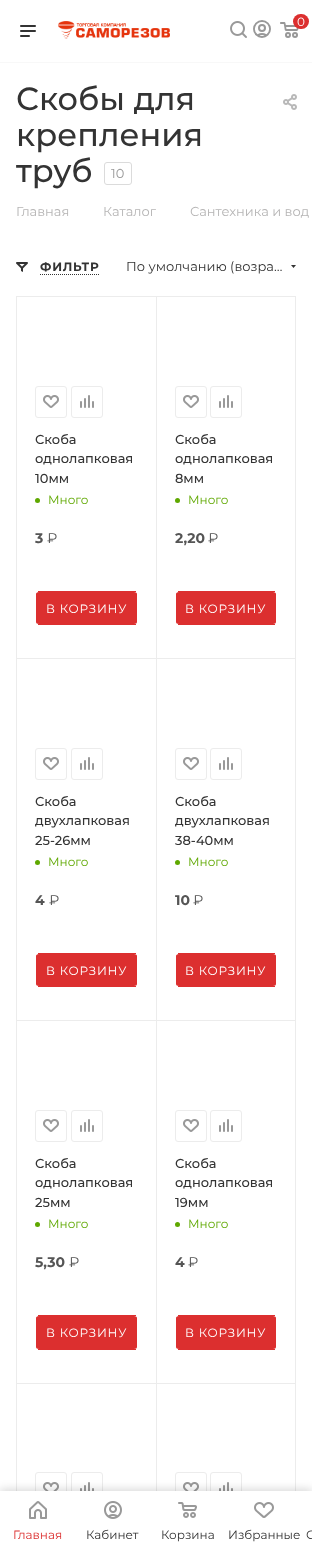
<?xml version="1.0" encoding="UTF-8"?>
<svg xmlns="http://www.w3.org/2000/svg" width="312" height="1553">
    <defs>
        <clipPath id="clip1"><rect x="175" y="792" width="102" height="58"/></clipPath>
        <filter id="blur1" x="-50%" y="-200%" width="200%" height="500%"><feGaussianBlur stdDeviation="4"/></filter>
    </defs>
    <rect width="100%" height="100%" fill="#FFFFFF"/>
    <rect x="0" y="62" width="312" height="1" fill="#F8F8F8"/>
    <image x="20" y="25" width="16" height="12" href="img_01.png"/>
    <image x="58" y="21" width="112" height="18" href="img_02.png"/>
    <image x="230" y="21" width="17" height="17" href="img_03.png"/>
    <image x="253" y="20" width="18" height="18" href="img_04.png"/>
    <image x="280" y="22" width="19" height="16" href="img_05.png"/>
    <rect x="293" y="14" width="16" height="15" rx="7.5" fill="#DC2F2F"/>
    <text x="297" y="26" font-family="Montserrat" font-size="12" fill="#FFFFFF">0</text>
    <text font-family="Montserrat" font-size="32" font-weight="500" fill="#333333">
        <tspan x="16" y="110">Скобы для</tspan>
        <tspan x="16" y="146">крепления</tspan>
        <tspan x="16" y="182">труб</tspan>
    </text>
    <rect x="104.5" y="162.5" width="27" height="22" rx="2.5" fill="none" stroke="#DBDBDB"/>
    <text x="111" y="178" font-family="Montserrat" font-size="13" fill="#999999">10</text>
    <image x="283" y="94" width="14" height="16" href="img_06.png"/>
    <text x="16" y="216" font-family="Montserrat" font-size="13" fill="#B6B5B5">Главная</text>
    <text x="103" y="216" font-family="Montserrat" font-size="13" fill="#B6B5B5">Каталог</text>
    <text x="190" y="216" font-family="Montserrat" font-size="13" fill="#B6B5B5">Сантехника и вод</text>
    <image x="16" y="262" width="12" height="10" href="img_07.png"/>
    <text x="40" y="271" font-family="Montserrat" font-size="12" font-weight="700" letter-spacing="0.75" fill="#333333">ФИЛЬТР</text>
    <path d="M 40 274.5 H 100" fill="none" stroke="#333333" stroke-dasharray="1 1"/>
    <text x="126" y="271" font-family="Montserrat" font-size="13" fill="#333333">По умолчанию (возра…</text>
    <path d="M 291 265 H 296 L 293.5 268 Z" fill="#333333" fill-rule="evenodd"/>
    <rect x="16.5" y="296.5" width="140" height="362" fill="none" stroke="#ECECEC"/>
    <rect x="35.5" y="386.5" width="31" height="31" rx="2.5" fill="none" stroke="#ECECEC"/>
    <image x="43" y="395" width="16" height="13" href="img_08.png"/>
    <rect x="71.5" y="386.5" width="31" height="31" rx="2.5" fill="none" stroke="#ECECEC"/>
    <image x="80" y="395" width="14" height="13" href="img_09.png"/>
    <text font-family="Montserrat" font-size="13" font-weight="500" fill="#333333">
        <tspan x="35" y="444">Скоба</tspan>
        <tspan x="35" y="463">однолапковая</tspan>
        <tspan x="35" y="483">10мм</tspan>
    </text>
    <circle cx="37.5" cy="500.5" r="2.5" fill="#5FA800"/>
    <text x="48" y="504" font-family="Montserrat" font-size="12" fill="#5FA800">Много</text>
    <text x="35" y="543" font-family="Montserrat" font-size="14" font-weight="700" fill="#555555">3</text>
    <text x="47" y="543" font-family="'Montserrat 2'" font-size="14" fill="#555555">₽</text>
    <path d="M 39 592 H 134 C 136 592 137 593 137 594 V 622 C 137 623 136 624 134 624 H 39 C 37 624 36 623 36 622 V 594 C 36 593 37 592 39 592 Z" fill="#DC2F2F"/>
    <rect x="38" y="591" width="98" height="1" fill="#DC2F2F"/>
    <rect x="38" y="624" width="98" height="1" fill="#DC2F2F"/>
    <text x="46" y="613" font-family="Montserrat" font-size="12" letter-spacing="0.75" fill="#FFFFFF">В КОРЗИНУ</text>
    <rect x="156.5" y="296.5" width="139" height="362" fill="none" stroke="#ECECEC"/>
    <rect x="175.5" y="386.5" width="31" height="31" rx="2.5" fill="none" stroke="#ECECEC"/>
    <image x="183" y="395" width="16" height="13" href="img_08.png"/>
    <rect x="210.5" y="386.5" width="31" height="31" rx="2.5" fill="none" stroke="#ECECEC"/>
    <image x="219" y="395" width="14" height="13" href="img_09.png"/>
    <text font-family="Montserrat" font-size="13" font-weight="500" fill="#333333">
        <tspan x="175" y="444">Скоба</tspan>
        <tspan x="175" y="463">однолапковая</tspan>
        <tspan x="175" y="483">8мм</tspan>
    </text>
    <circle cx="177.5" cy="500.5" r="2.5" fill="#5FA800"/>
    <text x="188" y="504" font-family="Montserrat" font-size="12" fill="#5FA800">Много</text>
    <text x="175" y="543" font-family="Montserrat" font-size="14" font-weight="700" fill="#555555">2,20</text>
    <text x="208" y="543" font-family="'Montserrat 2'" font-size="14" fill="#555555">₽</text>
    <path d="M 179 592 H 273 C 275 592 276 593 276 594 V 622 C 276 623 275 624 273 624 H 179 C 177 624 176 623 176 622 V 594 C 176 593 177 592 179 592 Z" fill="#DC2F2F"/>
    <rect x="178" y="591" width="97" height="1" fill="#DC2F2F"/>
    <rect x="178" y="624" width="97" height="1" fill="#DC2F2F"/>
    <text x="185" y="613" font-family="Montserrat" font-size="12" letter-spacing="0.75" fill="#FFFFFF">В КОРЗИНУ</text>
    <rect x="16.5" y="658.5" width="140" height="362" fill="none" stroke="#ECECEC"/>
    <rect x="35.5" y="748.5" width="31" height="31" rx="2.5" fill="none" stroke="#ECECEC"/>
    <image x="43" y="757" width="16" height="13" href="img_08.png"/>
    <rect x="71.5" y="748.5" width="31" height="31" rx="2.5" fill="none" stroke="#ECECEC"/>
    <image x="80" y="757" width="14" height="13" href="img_09.png"/>
    <text font-family="Montserrat" font-size="13" font-weight="500" fill="#333333">
        <tspan x="35" y="806">Скоба</tspan>
        <tspan x="35" y="825">двухлапковая</tspan>
        <tspan x="35" y="845">25-26мм</tspan>
    </text>
    <circle cx="37.5" cy="862.5" r="2.5" fill="#5FA800"/>
    <text x="48" y="866" font-family="Montserrat" font-size="12" fill="#5FA800">Много</text>
    <text x="35" y="905" font-family="Montserrat" font-size="14" font-weight="700" fill="#555555">4</text>
    <text x="49" y="905" font-family="'Montserrat 2'" font-size="14" fill="#555555">₽</text>
    <path d="M 39 954 H 134 C 136 954 137 955 137 956 V 984 C 137 985 136 986 134 986 H 39 C 37 986 36 985 36 984 V 956 C 36 955 37 954 39 954 Z" fill="#DC2F2F"/>
    <rect x="38" y="953" width="98" height="1" fill="#DC2F2F"/>
    <rect x="38" y="986" width="98" height="1" fill="#DC2F2F"/>
    <text x="46" y="975" font-family="Montserrat" font-size="12" letter-spacing="0.75" fill="#FFFFFF">В КОРЗИНУ</text>
    <rect x="156.5" y="658.5" width="139" height="362" fill="none" stroke="#ECECEC"/>
    <rect x="175.5" y="748.5" width="31" height="31" rx="2.5" fill="none" stroke="#ECECEC"/>
    <image x="183" y="757" width="16" height="13" href="img_08.png"/>
    <rect x="210.5" y="748.5" width="31" height="31" rx="2.5" fill="none" stroke="#ECECEC"/>
    <image x="219" y="757" width="14" height="13" href="img_09.png"/>
    <text x="175" y="806" font-family="Montserrat" font-size="13" font-weight="500" fill="#333333">Скоба</text>
    <g clip-path="url(#clip1)">
        <text x="175" y="825" font-family="Montserrat" font-size="13" font-weight="500" fill="#333333">двухлапковая</text>
    </g>
    <text x="175" y="845" font-family="Montserrat" font-size="13" font-weight="500" fill="#333333">38-40мм</text>
    <circle cx="177.5" cy="862.5" r="2.5" fill="#5FA800"/>
    <text x="188" y="866" font-family="Montserrat" font-size="12" fill="#5FA800">Много</text>
    <text x="175" y="905" font-family="Montserrat" font-size="14" font-weight="700" fill="#555555">10</text>
    <text x="193" y="905" font-family="'Montserrat 2'" font-size="14" fill="#555555">₽</text>
    <path d="M 179 954 H 273 C 275 954 276 955 276 956 V 984 C 276 985 275 986 273 986 H 179 C 177 986 176 985 176 984 V 956 C 176 955 177 954 179 954 Z" fill="#DC2F2F"/>
    <rect x="178" y="953" width="97" height="1" fill="#DC2F2F"/>
    <rect x="178" y="986" width="97" height="1" fill="#DC2F2F"/>
    <text x="185" y="975" font-family="Montserrat" font-size="12" letter-spacing="0.75" fill="#FFFFFF">В КОРЗИНУ</text>
    <rect x="16.5" y="1020.5" width="140" height="363" fill="none" stroke="#ECECEC"/>
    <rect x="35.5" y="1110.5" width="31" height="31" rx="2.5" fill="none" stroke="#ECECEC"/>
    <image x="43" y="1119" width="16" height="13" href="img_08.png"/>
    <rect x="71.5" y="1110.5" width="31" height="31" rx="2.5" fill="none" stroke="#ECECEC"/>
    <image x="80" y="1119" width="14" height="13" href="img_09.png"/>
    <text font-family="Montserrat" font-size="13" font-weight="500" fill="#333333">
        <tspan x="35" y="1168">Скоба</tspan>
        <tspan x="35" y="1187">однолапковая</tspan>
        <tspan x="35" y="1207">25мм</tspan>
    </text>
    <circle cx="37.5" cy="1224.5" r="2.5" fill="#5FA800"/>
    <text x="48" y="1228" font-family="Montserrat" font-size="12" fill="#5FA800">Много</text>
    <text x="35" y="1267" font-family="Montserrat" font-size="14" font-weight="700" fill="#555555">5,30</text>
    <text x="69" y="1267" font-family="'Montserrat 2'" font-size="14" fill="#555555">₽</text>
    <path d="M 39 1316 H 134 C 136 1316 137 1317 137 1318 V 1347 C 137 1348 136 1349 134 1349 H 39 C 37 1349 36 1348 36 1347 V 1318 C 36 1317 37 1316 39 1316 Z" fill="#DC2F2F"/>
    <rect x="38" y="1315" width="98" height="1" fill="#DC2F2F"/>
    <rect x="38" y="1349" width="98" height="1" fill="#DC2F2F"/>
    <text x="46" y="1337" font-family="Montserrat" font-size="12" letter-spacing="0.75" fill="#FFFFFF">В КОРЗИНУ</text>
    <rect x="156.5" y="1020.5" width="139" height="363" fill="none" stroke="#ECECEC"/>
    <rect x="175.5" y="1110.5" width="31" height="31" rx="2.5" fill="none" stroke="#ECECEC"/>
    <image x="183" y="1119" width="16" height="13" href="img_08.png"/>
    <rect x="210.5" y="1110.5" width="31" height="31" rx="2.5" fill="none" stroke="#ECECEC"/>
    <image x="219" y="1119" width="14" height="13" href="img_09.png"/>
    <text font-family="Montserrat" font-size="13" font-weight="500" fill="#333333">
        <tspan x="175" y="1168">Скоба</tspan>
        <tspan x="175" y="1187">однолапковая</tspan>
        <tspan x="175" y="1207">19мм</tspan>
    </text>
    <circle cx="177.5" cy="1224.5" r="2.5" fill="#5FA800"/>
    <text x="188" y="1228" font-family="Montserrat" font-size="12" fill="#5FA800">Много</text>
    <text x="175" y="1267" font-family="Montserrat" font-size="14" font-weight="700" fill="#555555">4</text>
    <text x="188" y="1267" font-family="'Montserrat 2'" font-size="14" fill="#555555">₽</text>
    <path d="M 179 1316 H 273 C 275 1316 276 1317 276 1318 V 1347 C 276 1348 275 1349 273 1349 H 179 C 177 1349 176 1348 176 1347 V 1318 C 176 1317 177 1316 179 1316 Z" fill="#DC2F2F"/>
    <rect x="178" y="1315" width="97" height="1" fill="#DC2F2F"/>
    <rect x="178" y="1349" width="97" height="1" fill="#DC2F2F"/>
    <text x="185" y="1337" font-family="Montserrat" font-size="12" letter-spacing="0.75" fill="#FFFFFF">В КОРЗИНУ</text>
    <rect x="16.5" y="1383.5" width="140" height="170" fill="none" stroke="#ECECEC"/>
    <rect x="35.5" y="1472.5" width="31" height="31" rx="2.5" fill="none" stroke="#ECECEC"/>
    <image x="43" y="1482" width="16" height="9" href="img_10.png"/>
    <rect x="71.5" y="1472.5" width="31" height="31" rx="2.5" fill="none" stroke="#ECECEC"/>
    <image x="80" y="1482" width="14" height="9" href="img_11.png"/>
    <rect x="156.5" y="1383.5" width="139" height="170" fill="none" stroke="#ECECEC"/>
    <rect x="175.5" y="1472.5" width="31" height="31" rx="2.5" fill="none" stroke="#ECECEC"/>
    <image x="183" y="1482" width="16" height="9" href="img_10.png"/>
    <rect x="210.5" y="1472.5" width="31" height="31" rx="2.5" fill="none" stroke="#ECECEC"/>
    <image x="219" y="1482" width="14" height="9" href="img_11.png"/>
    <rect x="0" y="1489" width="312" height="62" fill="#000000" fill-opacity="0.15" filter="url(#blur1)"/>
    <rect x="0" y="1491" width="312" height="62" fill="#FFFFFF"/>
    <image x="29" y="1501" width="18" height="18" href="img_12.png"/>
    <text x="13" y="1539" font-family="Montserrat" font-size="12" fill="#DC2F2F">Главная</text>
    <image x="104" y="1501" width="18" height="18" href="img_13.png"/>
    <text x="86" y="1539" font-family="Montserrat" font-size="12" fill="#333333">Кабинет</text>
    <image x="178" y="1502" width="19" height="16" href="img_14.png"/>
    <text x="161" y="1539" font-family="Montserrat" font-size="12" fill="#333333">Корзина</text>
    <image x="254" y="1502" width="20" height="16" href="img_15.png"/>
    <text x="228" y="1539" font-family="Montserrat" font-size="12" fill="#333333">Избранные</text>
    <text x="306" y="1539" font-family="Montserrat" font-size="12" fill="#333333">С</text>
</svg>
